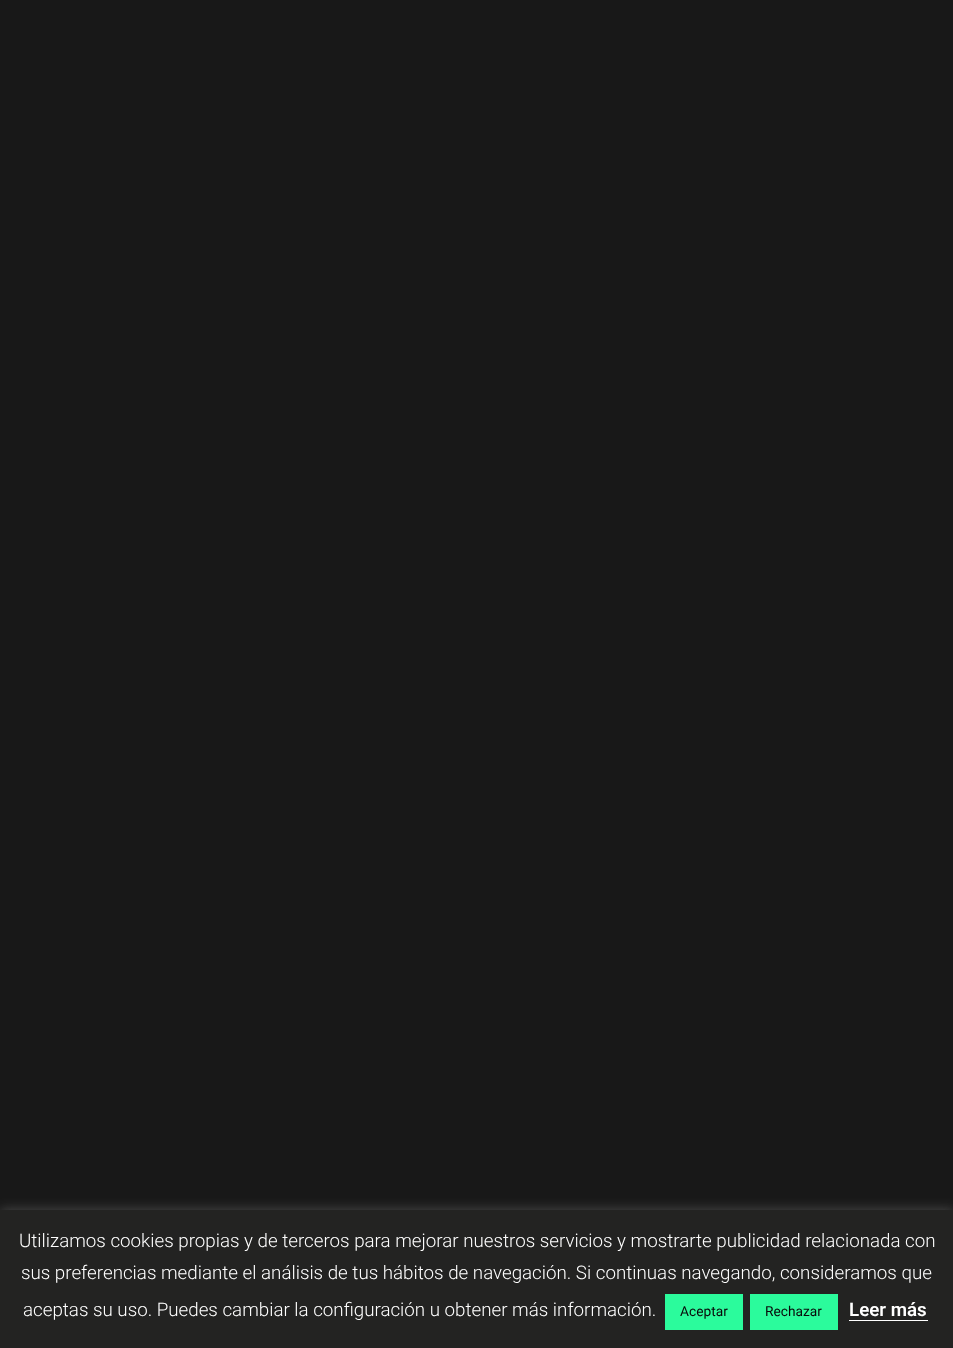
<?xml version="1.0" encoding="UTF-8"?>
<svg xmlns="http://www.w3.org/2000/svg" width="953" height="1348">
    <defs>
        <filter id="blur1" x="-50%" y="-200%" width="200%" height="500%"><feGaussianBlur stdDeviation="6"/></filter>
    </defs>
    <rect width="100%" height="100%" fill="#181818"/>
    <rect x="0" y="1209" width="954" height="139" fill="#ACABAB" fill-opacity="0.3" filter="url(#blur1)"/>
    <rect x="0" y="1210" width="953" height="138" fill="#232322"/>
    <text x="19" y="1247" font-family="Roboto" font-size="18.75" font-weight="300" fill="#FFFFFF">Utilizamos cookies propias y de terceros para mejorar nuestros servicios y mostrarte publicidad relacionada con</text>
    <text x="21" y="1279" font-family="Roboto" font-size="18.75" font-weight="300" fill="#FFFFFF">sus preferencias mediante el análisis de tus hábitos de navegación. Si continuas navegando, consideramos que</text>
    <text x="23" y="1316" font-family="Roboto" font-size="18.75" font-weight="300" fill="#FFFFFF">aceptas su uso. Puedes cambiar la configuración u obtener más información.</text>
    <rect x="665" y="1294" width="78" height="36" fill="#2BFB9C"/>
    <text x="680" y="1316" font-family="Roboto" font-size="13.75" fill="#0A0A0A">Aceptar</text>
    <rect x="750" y="1294" width="88" height="36" fill="#2BFB9C"/>
    <text x="765" y="1316" font-family="Roboto" font-size="13.75" fill="#0A0A0A">Rechazar</text>
    <text x="849" y="1316" font-family="Roboto" font-size="18.75" font-weight="600" fill="#FFFFFF">Leer más</text>
    <rect x="849" y="1320" width="79" height="1" fill="#FFFFFF"/>
</svg>
